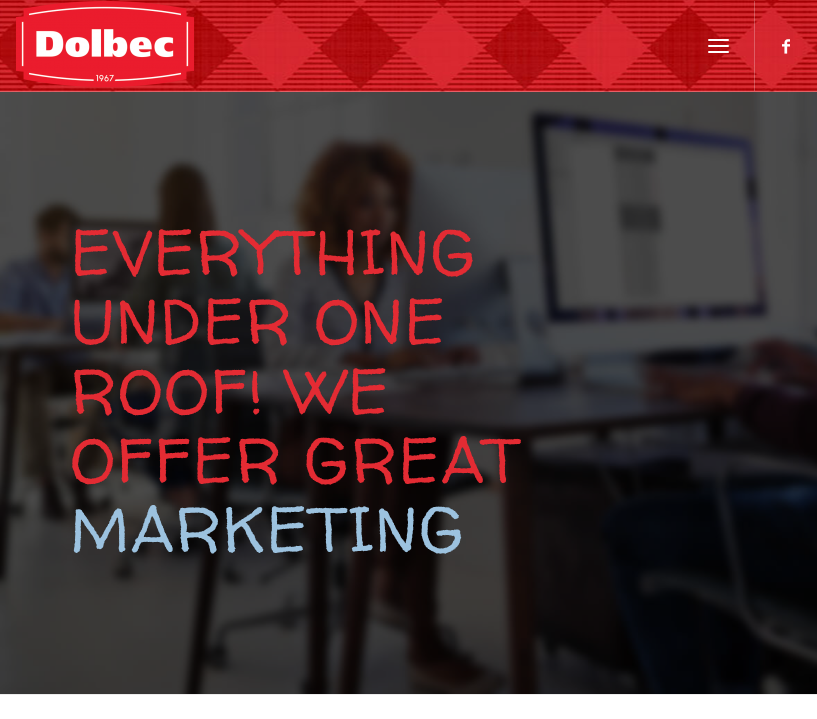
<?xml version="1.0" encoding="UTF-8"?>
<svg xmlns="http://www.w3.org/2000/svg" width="817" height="719">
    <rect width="100%" height="100%" fill="#FFFFFF"/>
    <image x="0" y="0" width="817" height="92" href="img_01.png"/>
    <rect x="0" y="91" width="817" height="1" fill="#FFFFFF" fill-opacity="0.25"/>
    <image x="16" y="1" width="178" height="86" href="img_02.png"/>
    <rect x="754" y="1" width="1" height="90" fill="#FFFFFF" fill-opacity="0.25"/>
    <rect x="708" y="45" width="21" height="2" rx="1" fill="#FFFFFF"/>
    <rect x="708" y="39" width="21" height="2" rx="1" fill="#FFFFFF"/>
    <rect x="708" y="51" width="21" height="2" rx="1" fill="#FFFFFF"/>
    <image x="782" y="39" width="8" height="15" href="img_03.png"/>
    <image x="0" y="92" width="817" height="602" href="img_04.png"/>
    <text font-family="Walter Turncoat" font-size="63" letter-spacing="1" fill="#E32B33">
        <tspan x="70" y="275">EVERYTHING</tspan>
        <tspan x="70" y="344">UNDER ONE</tspan>
        <tspan x="70" y="414">ROOF! WE</tspan>
        <tspan x="70" y="483">OFFER GREAT</tspan>
    </text>
    <text x="70" y="552" font-family="Walter Turncoat" font-size="63" letter-spacing="1" fill="#9CC2DF">MARKETING</text>
    <rect x="0" y="694" width="817" height="1" fill="#EBEBEB"/>
</svg>
